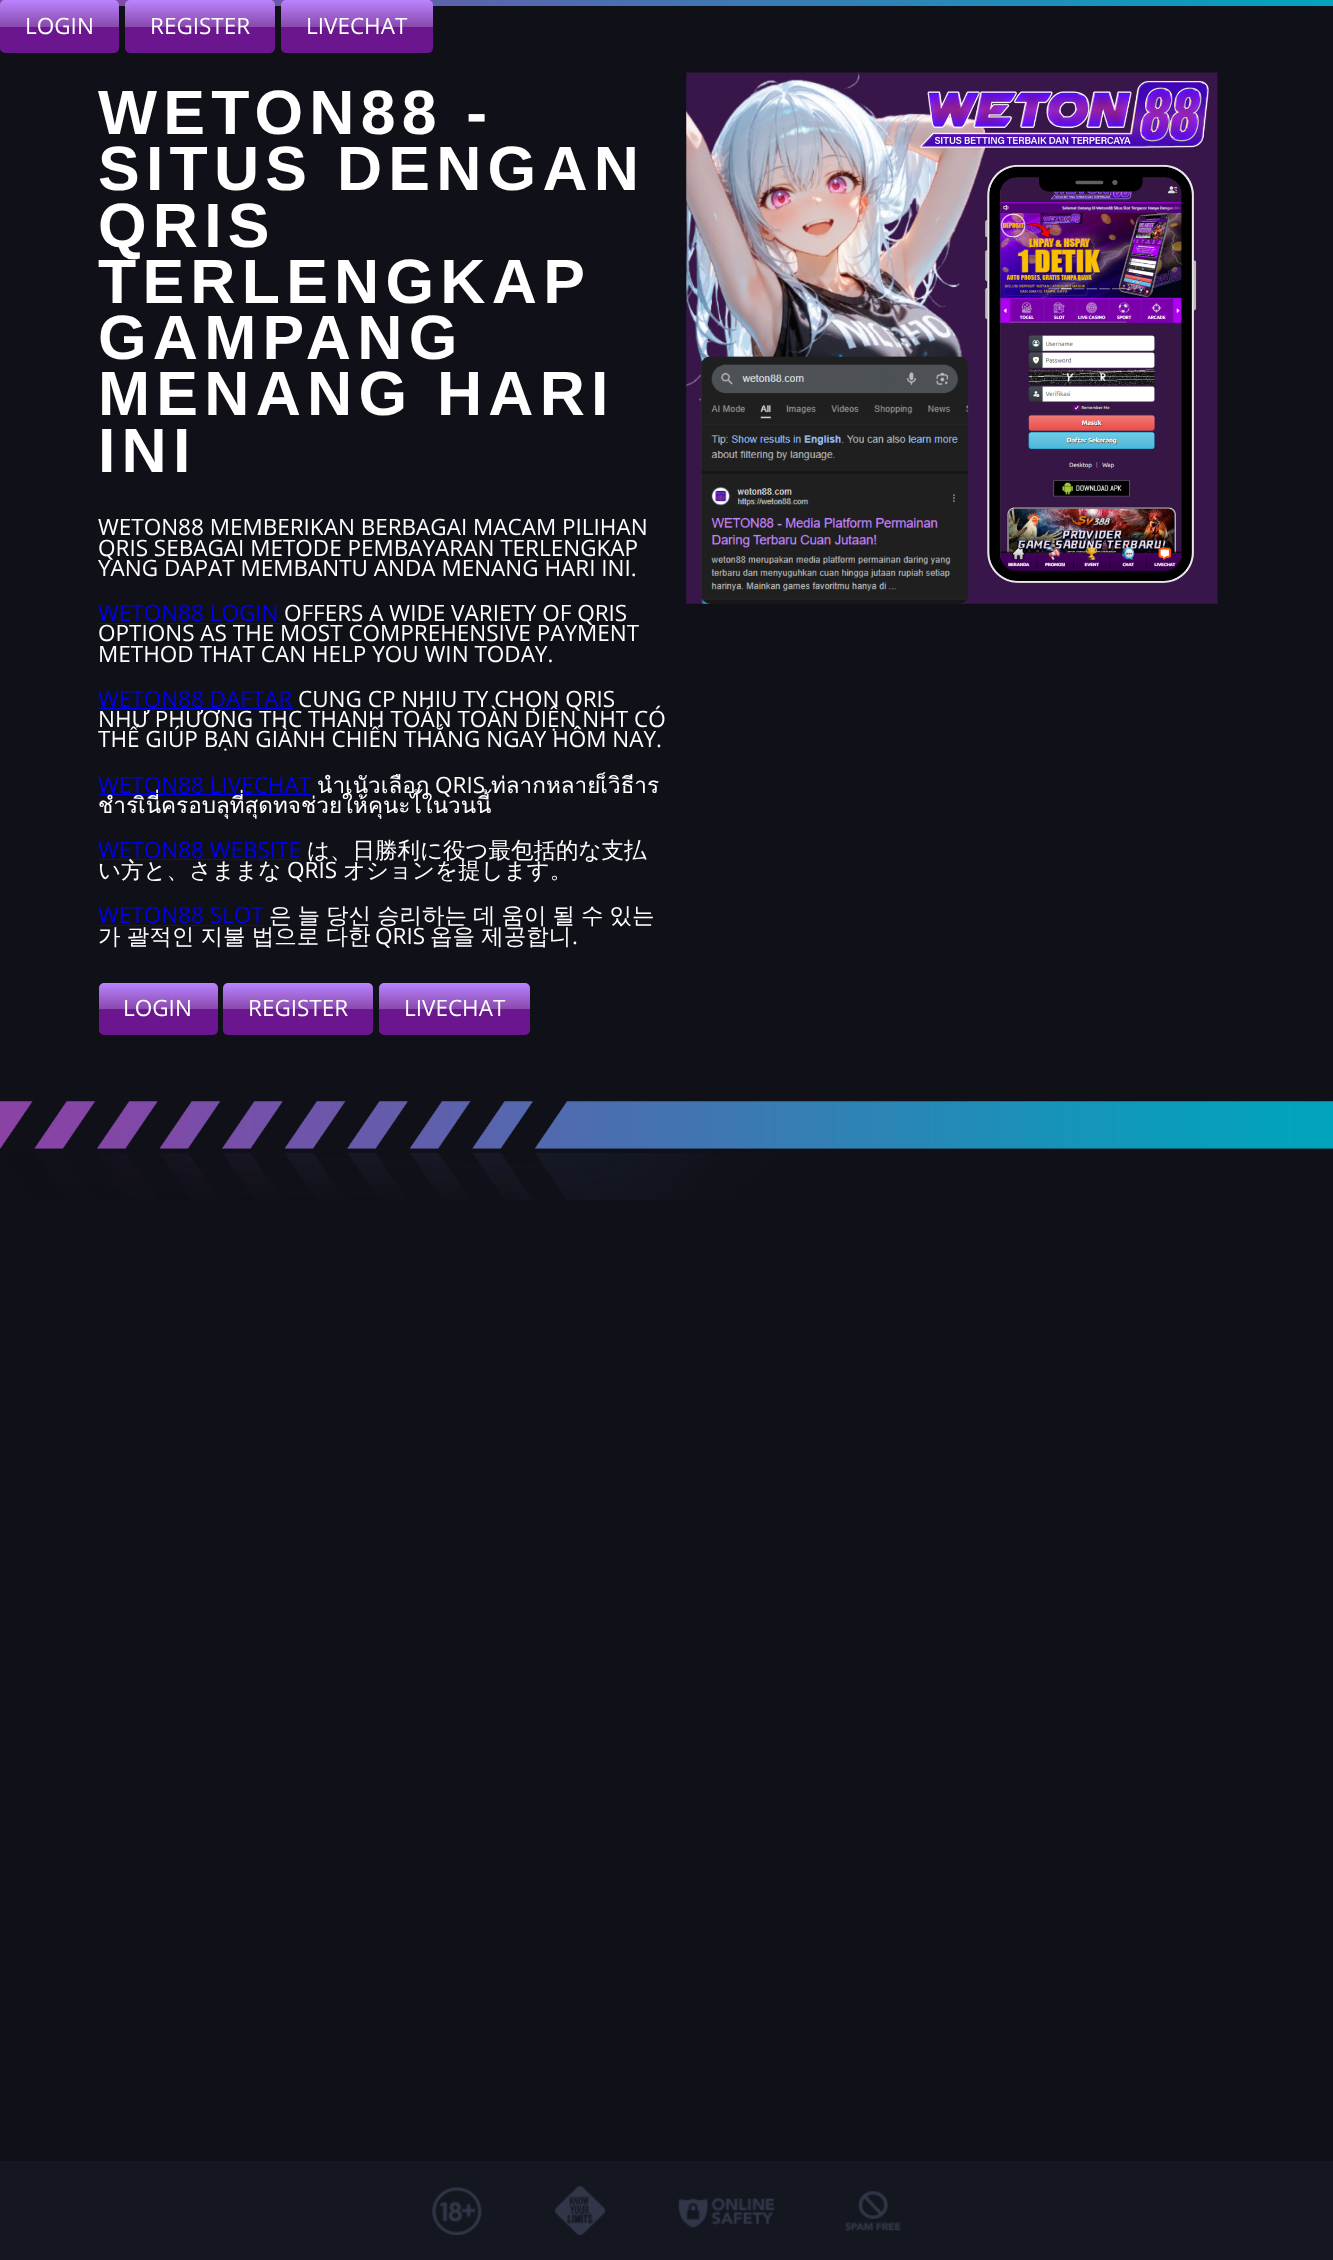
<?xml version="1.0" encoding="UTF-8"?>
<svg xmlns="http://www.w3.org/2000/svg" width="1333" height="2260">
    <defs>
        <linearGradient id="g1" gradientUnits="userSpaceOnUse" x1="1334" y1="3.1" x2="0" y2="3.1"><stop offset="0" stop-color="#00A4BD"/><stop offset="1" stop-color="#8A42A5"/></linearGradient>
        <linearGradient id="g2" gradientUnits="userSpaceOnUse" x1="59" y1="0" x2="59" y2="53"><stop offset="0" stop-color="#BB84FF"/><stop offset="0.5" stop-color="#8949AD"/><stop offset="0.51" stop-color="#6B158E"/><stop offset="1" stop-color="#6B158E"/></linearGradient>
        <linearGradient id="g3" gradientUnits="userSpaceOnUse" x1="200" y1="0" x2="200" y2="53"><stop offset="0" stop-color="#BB84FF"/><stop offset="0.5" stop-color="#8949AD"/><stop offset="0.51" stop-color="#6B158E"/><stop offset="1" stop-color="#6B158E"/></linearGradient>
        <linearGradient id="g4" gradientUnits="userSpaceOnUse" x1="357" y1="0" x2="357" y2="53"><stop offset="0" stop-color="#BB84FF"/><stop offset="0.5" stop-color="#8949AD"/><stop offset="0.51" stop-color="#6B158E"/><stop offset="1" stop-color="#6B158E"/></linearGradient>
        <linearGradient id="g5" gradientUnits="userSpaceOnUse" x1="158" y1="983" x2="158" y2="1035"><stop offset="0" stop-color="#BB84FF"/><stop offset="0.5" stop-color="#8949AD"/><stop offset="0.51" stop-color="#6B158E"/><stop offset="1" stop-color="#6B158E"/></linearGradient>
        <linearGradient id="g6" gradientUnits="userSpaceOnUse" x1="298" y1="983" x2="298" y2="1035"><stop offset="0" stop-color="#BB84FF"/><stop offset="0.5" stop-color="#8949AD"/><stop offset="0.51" stop-color="#6B158E"/><stop offset="1" stop-color="#6B158E"/></linearGradient>
        <linearGradient id="g7" gradientUnits="userSpaceOnUse" x1="454" y1="983" x2="454" y2="1035"><stop offset="0" stop-color="#BB84FF"/><stop offset="0.5" stop-color="#8949AD"/><stop offset="0.51" stop-color="#6B158E"/><stop offset="1" stop-color="#6B158E"/></linearGradient>
    </defs>
    <rect width="100%" height="100%" fill="#101118"/>
    <rect x="0" y="0" width="1333" height="6" fill="url(#g1)"/>
    <rect x="0" y="0" width="119" height="53" rx="5" fill="url(#g2)"/>
    <text x="25" y="34" font-family="Open Sans" font-size="22.5" fill="#FFFFFF">LOGIN</text>
    <rect x="125" y="0" width="150" height="53" rx="5" fill="url(#g3)"/>
    <text x="150" y="34" font-family="Open Sans" font-size="22.5" fill="#FFFFFF">REGISTER</text>
    <rect x="281" y="0" width="152" height="53" rx="5" fill="url(#g4)"/>
    <text x="306" y="34" font-family="Open Sans" font-size="22.5" fill="#FFFFFF">LIVECHAT</text>
    <text font-family="Liberation Sans" font-size="62.5" font-weight="700" letter-spacing="6.25" fill="#FFFFFF">
        <tspan x="98" y="134">WETON88 -</tspan>
        <tspan x="98" y="190">SITUS DENGAN</tspan>
        <tspan x="98" y="247">QRIS</tspan>
        <tspan x="98" y="303">TERLENGKAP</tspan>
        <tspan x="98" y="359">GAMPANG</tspan>
        <tspan x="98" y="415">MENANG HARI</tspan>
        <tspan x="98" y="472">INI</tspan>
    </text>
    <text font-family="Open Sans" font-size="22.5" fill="#FFFFFF">
        <tspan x="98" y="535">WETON88 MEMBERIKAN BERBAGAI MACAM PILIHAN</tspan>
        <tspan x="98" y="556">QRIS SEBAGAI METODE PEMBAYARAN TERLENGKAP</tspan>
        <tspan x="98" y="576">YANG DAPAT MEMBANTU ANDA MENANG HARI INI.</tspan>
    </text>
    <text x="98" y="621" font-family="Open Sans" font-size="22.5" fill="#0000EE">WETON88 LOGIN</text>
    <rect x="99" y="623" width="180" height="1" fill="#0000EE"/>
    <text x="284" y="621" font-family="Open Sans" font-size="22.5" fill="#FFFFFF">OFFERS A WIDE VARIETY OF QRIS</text>
    <text font-family="Open Sans" font-size="22.5" fill="#FFFFFF">
        <tspan x="98" y="641">OPTIONS AS THE MOST COMPREHENSIVE PAYMENT</tspan>
        <tspan x="98" y="662">METHOD THAT CAN HELP YOU WIN TODAY.</tspan>
    </text>
    <text x="98" y="707" font-family="Open Sans" font-size="22.5" fill="#0000EE">WETON88 DAFTAR</text>
    <rect x="99" y="708" width="194" height="1" fill="#0000EE"/>
    <text x="298" y="707" font-family="Open Sans" font-size="22.5" fill="#FFFFFF">CUNG CP NHIU TY CHỌN QRIS</text>
    <text font-family="Open Sans" font-size="22.5" fill="#FFFFFF">
        <tspan x="98" y="727">NHƯ PHƯƠNG THC THANH TOÁN TOÀN DIỆN NHT CÓ</tspan>
        <tspan x="98" y="747">THỂ GIÚP BẠN GIÀNH CHIẾN THẮNG NGAY HÔM NAY.</tspan>
    </text>
    <text x="98" y="793" font-family="Open Sans" font-size="22.5" fill="#0000EE">WETON88 LIVECHAT</text>
    <rect x="99" y="794" width="212" height="1" fill="#0000EE"/>
    <text x="317" y="793" font-family="Loma" font-size="22.5" fill="#FFFFFF">นำเนัวเลือก</text>
    <text x="435" y="793" font-family="Open Sans" font-size="22.5" fill="#FFFFFF">QRIS</text>
    <text x="491" y="793" font-family="Loma" font-size="22.5" fill="#FFFFFF">ท่ลากหลายเ็วิธีาร</text>
    <text x="98" y="813" font-family="Loma" font-size="22.5" fill="#FFFFFF">ชำรเินี่ครอบลุที่สุดทจช่วยให้คุนะไ้ในวนนี้</text>
    <text x="98" y="858" font-family="Open Sans" font-size="22.5" fill="#0000EE">WETON88 WEBSITE</text>
    <rect x="99" y="859" width="202" height="1" fill="#0000EE"/>
    <text x="307" y="858" font-family="WenQuanYi Zen Hei" font-size="22.5" font-weight="500" fill="#FFFFFF">は、日勝利に役つ最包括的な支払</text>
    <text x="98" y="878" font-family="WenQuanYi Zen Hei" font-size="22.5" font-weight="500" fill="#FFFFFF">い方と、さままな</text>
    <text x="287" y="878" font-family="Open Sans" font-size="22.5" fill="#FFFFFF">QRIS</text>
    <text x="343" y="878" font-family="WenQuanYi Zen Hei" font-size="22.5" font-weight="500" fill="#FFFFFF">オションを提します。</text>
    <text x="98" y="923" font-family="Open Sans" font-size="22.5" fill="#0000EE">WETON88 SLOT</text>
    <rect x="99" y="925" width="165" height="1" fill="#0000EE"/>
    <text x="269" y="923" word-spacing="-0.75" font-family="WenQuanYi Zen Hei" font-size="22.5" font-weight="500" fill="#FFFFFF">은 늘 당신 승리하는 데 움이 될 수 있는</text>
    <text x="98" y="944" word-spacing="-0.5" font-family="WenQuanYi Zen Hei" font-size="22.5" font-weight="500" fill="#FFFFFF">가 괄적인 지불 법으로 다한</text>
    <text x="375" y="944" font-family="Open Sans" font-size="22.5" fill="#FFFFFF">QRIS</text>
    <text x="430" y="944" word-spacing="-0.5" font-family="WenQuanYi Zen Hei" font-size="22.5" font-weight="500" fill="#FFFFFF">옵을 제공합니</text>
    <text x="572" y="944" font-family="Open Sans" font-size="22.5" fill="#FFFFFF">.</text>
    <rect x="99" y="983" width="119" height="52" rx="5" fill="url(#g5)"/>
    <text x="123" y="1016" font-family="Open Sans" font-size="22.5" fill="#FFFFFF">LOGIN</text>
    <rect x="223" y="983" width="150" height="52" rx="5" fill="url(#g6)"/>
    <text x="248" y="1016" font-family="Open Sans" font-size="22.5" fill="#FFFFFF">REGISTER</text>
    <rect x="379" y="983" width="151" height="52" rx="5" fill="url(#g7)"/>
    <text x="404" y="1016" font-family="Open Sans" font-size="22.5" fill="#FFFFFF">LIVECHAT</text>
    <image x="686" y="72" width="532" height="532" href="img_01.png"/>
    <image x="0" y="1101" width="1333" height="99" href="img_02.png"/>
    <rect x="0" y="2161" width="1333" height="99" fill="#151720"/>
    <image x="432" y="2186" width="469" height="49" href="img_03.png"/>
</svg>
